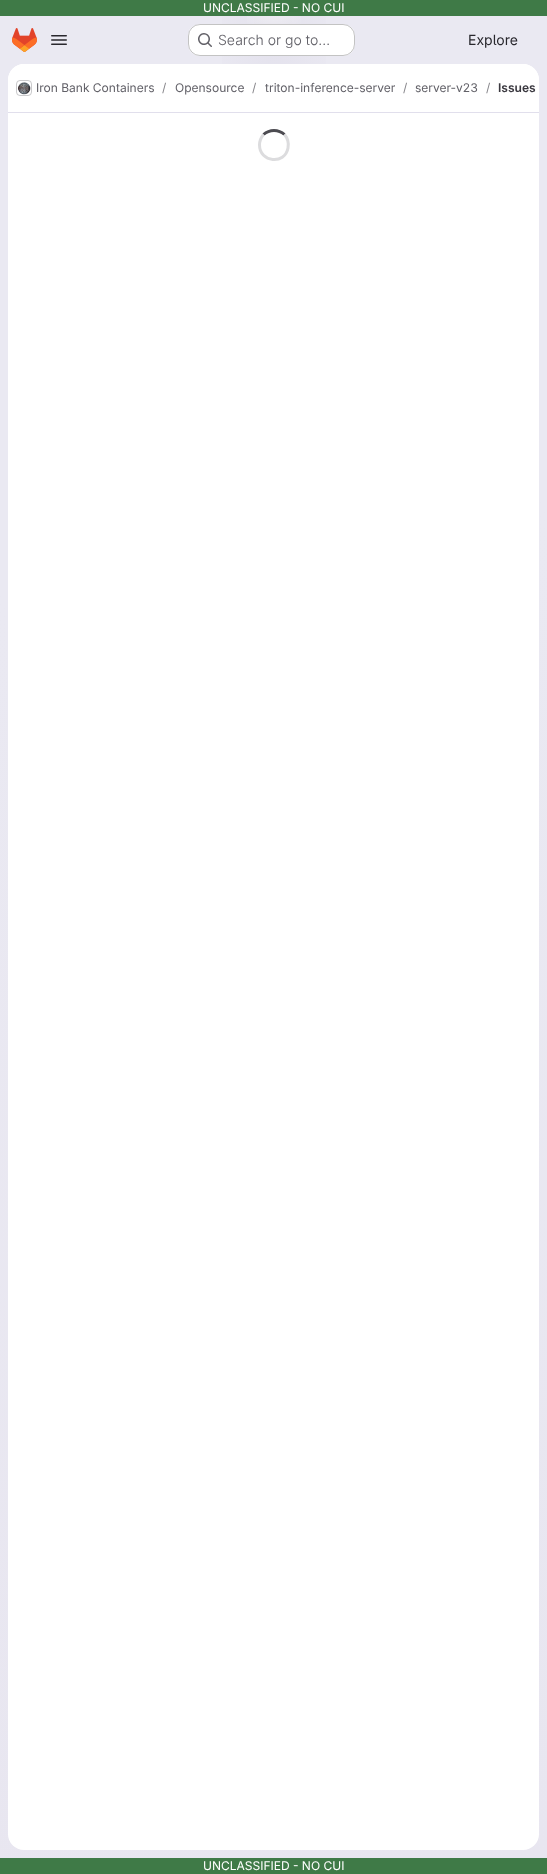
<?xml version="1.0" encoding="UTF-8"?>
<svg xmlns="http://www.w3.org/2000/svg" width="547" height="1874">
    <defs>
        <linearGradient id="g1" gradientUnits="userSpaceOnUse" x1="442" y1="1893" x2="105" y2="-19"><stop offset="0" stop-color="#E8E6F0"/><stop offset="0.7" stop-color="#EAE9F2"/></linearGradient>
        <radialGradient id="g2" gradientUnits="userSpaceOnUse" cx="0" cy="0" r="1" gradientTransform="matrix(274 0 0 1874 274 0)"><stop offset="0" stop-color="#E4E2ED"/><stop offset="0.26" stop-color="#E4E2ED" stop-opacity="0"/></radialGradient>
        <radialGradient id="g3" gradientUnits="userSpaceOnUse" cx="0" cy="0" r="1" gradientTransform="matrix(274 0 0 1874 274 0)"><stop offset="0" stop-color="#E4E2EC"/><stop offset="0.18" stop-color="#E4E2EC" stop-opacity="0"/></radialGradient>
        <radialGradient id="g4" gradientUnits="userSpaceOnUse" cx="274" cy="0" r="1894"><stop offset="0" stop-color="#FFFFFF" stop-opacity="0.6"/><stop offset="0.02" stop-color="#FFFFFF" stop-opacity="0"/></radialGradient>
    </defs>
    <rect width="100%" height="100%" fill="#FFFFFF"/>
    <rect x="0" y="16" width="547" height="1842" fill="url(#g1)"/>
    <rect x="222" y="16" width="104" height="48" fill="url(#g2)"/>
    <rect x="254" y="17" width="38" height="29" fill="url(#g3)"/>
    <rect x="247" y="16" width="54" height="8" fill="url(#g4)"/>
    <rect x="0" y="0" width="547" height="16" fill="#3F7A47"/>
    <text x="203" y="12" font-family="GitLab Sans" font-size="12" fill="#FFFFFF">UNCLASSIFIED - NO CUI</text>
    <image x="12" y="28" width="25" height="24" href="img_01.png"/>
    <image x="51" y="35" width="16" height="10" href="img_02.png"/>
    <rect x="188" y="24" width="167" height="32" rx="12" fill="#FFFFFF"/>
    <rect x="188.5" y="24.5" width="166" height="31" rx="11.5" fill="none" stroke="#050506" stroke-opacity="0.24"/>
    <image x="198" y="33" width="14" height="14" href="img_03.png"/>
    <text x="218" y="45" font-family="GitLab Sans" font-size="14" font-weight="300" fill="#626168">Search or go to…</text>
    <text x="468" y="45" font-family="GitLab Sans" font-size="14" fill="#28272D">Explore</text>
    <rect x="8" y="64" width="531" height="1786" rx="16" fill="#FFFFFF"/>
    <path d="M 24 64 H 523 C 532 64 539 71 539 80 V 113 H 8 V 80 C 8 71 15 64 24 64 Z" fill="#FFFFFF"/>
    <rect x="8" y="112" width="531" height="1" fill="#E1DFEC"/>
    <rect x="16.5" y="80.5" width="15" height="15" rx="3.5" fill="none" stroke="#DCDCDE"/>
    <image x="17" y="82" width="14" height="13" href="img_04.png"/>
    <rect x="16.5" y="80.5" width="15" height="15" rx="3.5" fill="none" stroke="#050506" stroke-opacity="0.08"/>
    <text x="36" y="92" font-family="GitLab Sans" font-size="12" fill="#626168">Iron Bank Containers</text>
    <text x="162" y="92" font-family="GitLab Sans" font-size="12" fill="#89888D">/</text>
    <text x="175" y="92" font-family="GitLab Sans" font-size="12" fill="#626168">Opensource</text>
    <text x="252" y="92" font-family="GitLab Sans" font-size="12" fill="#89888D">/</text>
    <text x="265" y="92" font-family="GitLab Sans" font-size="12" fill="#626168">triton-inference-server</text>
    <text x="403" y="92" font-family="GitLab Sans" font-size="12" fill="#89888D">/</text>
    <text x="415" y="92" font-family="GitLab Sans" font-size="12" fill="#626168">server-v23</text>
    <text x="486" y="92" font-family="GitLab Sans" font-size="12" fill="#89888D">/</text>
    <text x="498" y="92" font-family="GitLab Sans" font-size="12" font-weight="600" fill="#3A383F">Issues</text>
    <path d="M 263.5 134.5 C 269.5 129 278.5 129 284.5 134.5" fill="none" stroke="#4C4B51" stroke-width="3"/>
    <path d="M 284.5 134.5 C 287.5 138 289 143 288 148 C 285 165 259.5 162.5 259.5 145 C 259.5 141 261 137.5 263.5 134.5" fill="none" stroke="#DCDCDE" stroke-width="3"/>
    <rect x="0" y="1858" width="547" height="16" fill="#3F7A47"/>
    <text x="203" y="1870" font-family="GitLab Sans" font-size="12" fill="#FFFFFF">UNCLASSIFIED - NO CUI</text>
</svg>
